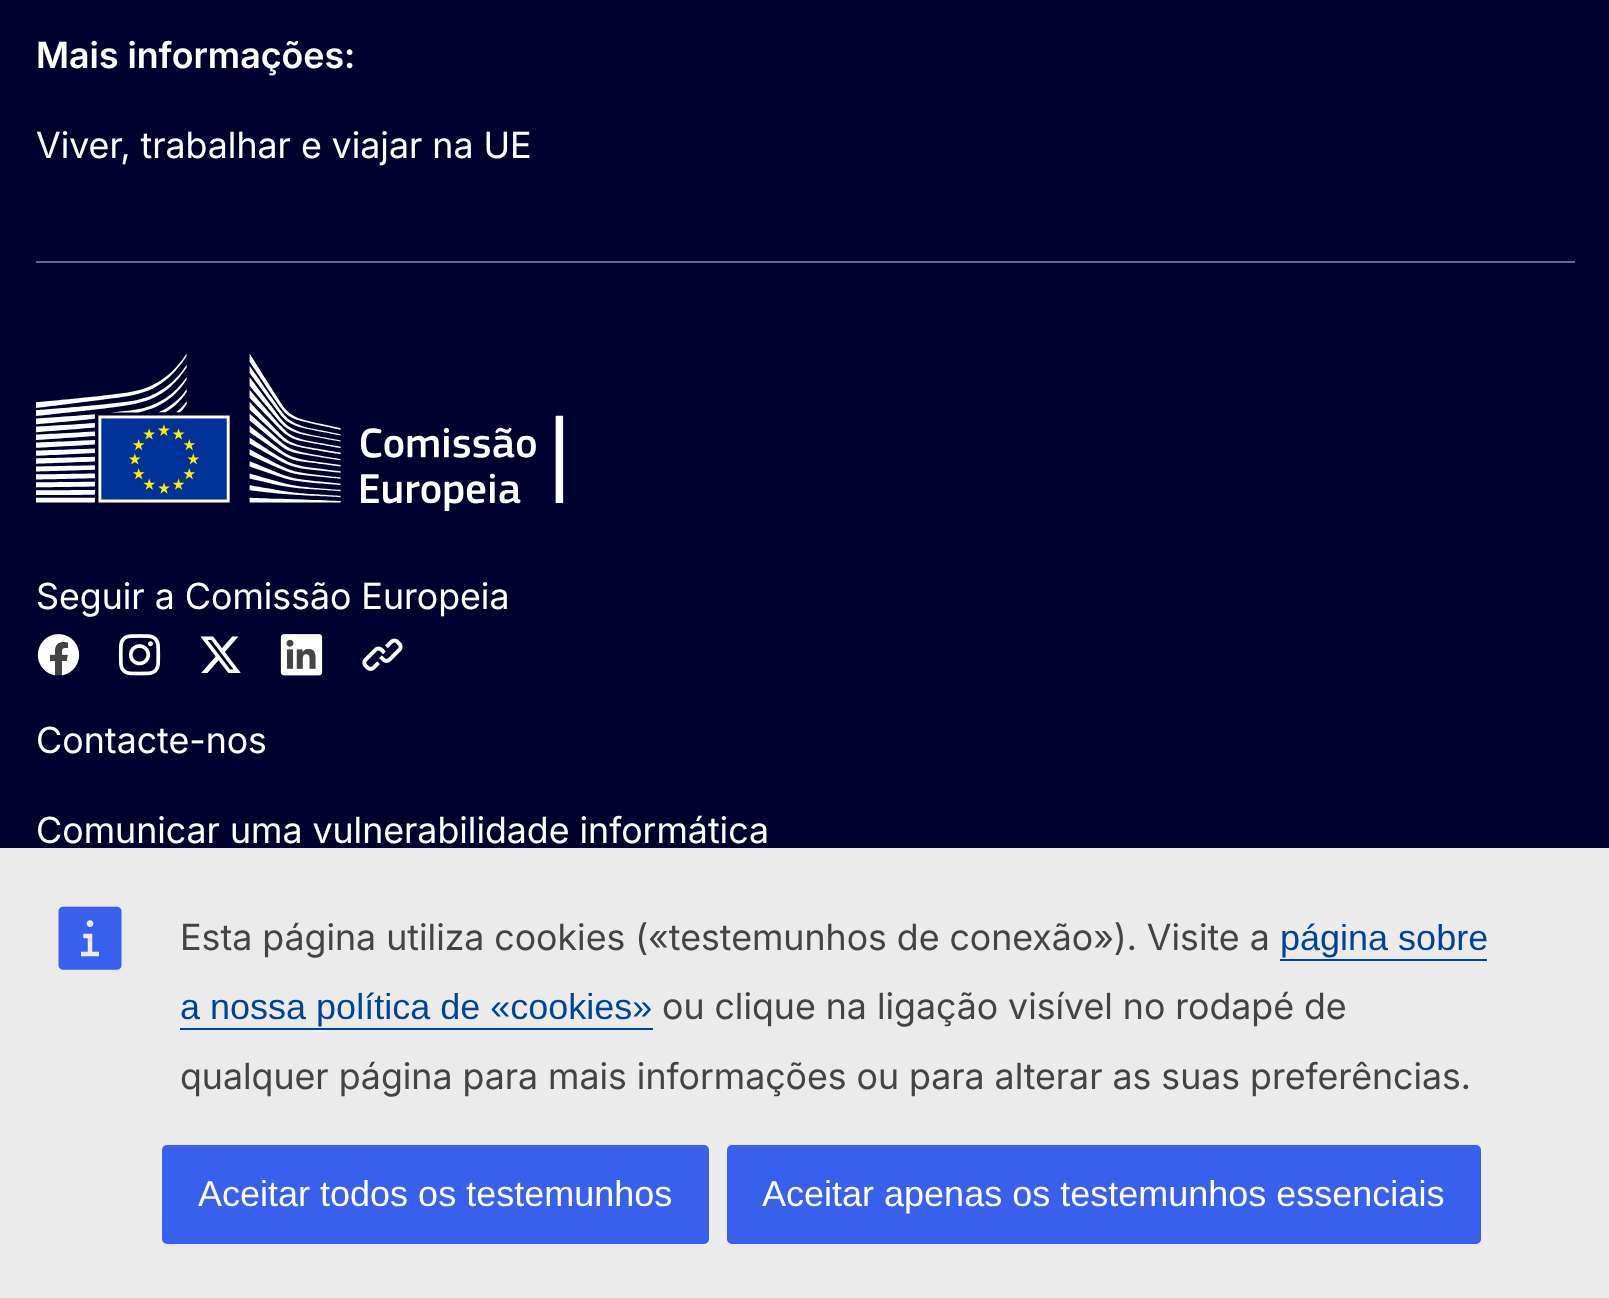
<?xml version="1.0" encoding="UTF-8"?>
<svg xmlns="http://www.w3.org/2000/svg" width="1609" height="1298">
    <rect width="100%" height="100%" fill="#00002E"/>
    <text x="36" y="68" font-family="Inter" font-size="36" font-weight="600" fill="#FFFFFF">Mais informações:</text>
    <text x="36" y="158" font-family="Inter" font-size="36" fill="#FFFFFF">Viver, trabalhar e viajar na UE</text>
    <rect x="36" y="261" width="1539" height="2" fill="#64688C"/>
    <image x="36" y="354" width="528" height="157" href="img_01.png"/>
    <text x="36" y="609" font-family="Inter" font-size="36" fill="#FFFFFF">Seguir a Comissão Europeia</text>
    <image x="37" y="634" width="43" height="42" href="img_02.png"/>
    <image x="118" y="634" width="43" height="42" href="img_03.png"/>
    <image x="200" y="636" width="41" height="37" href="img_04.png"/>
    <image x="280" y="634" width="43" height="42" href="img_05.png"/>
    <image x="362" y="638" width="41" height="33" href="img_06.png"/>
    <text x="36" y="753" font-family="Inter" font-size="36" fill="#FFFFFF">Contacte-nos</text>
    <text x="36" y="843" font-family="Inter" font-size="36" fill="#FFFFFF">Comunicar uma vulnerabilidade informática</text>
    <rect x="0" y="848" width="1609" height="450" fill="#EBEBEB"/>
    <image x="58" y="906" width="64" height="64" href="img_07.png"/>
    <text x="180" y="950" font-family="Inter" font-size="36" fill="#444444">Esta página utiliza cookies («testemunhos de conexão»). Visite a</text>
    <text x="1280" y="950" font-family="Liberation Sans" font-size="36" fill="#004494">página sobre</text>
    <rect x="1280" y="959" width="207" height="2" fill="#004494"/>
    <text x="180" y="1019" font-family="Liberation Sans" font-size="36" fill="#004494">a nossa política de «cookies»</text>
    <rect x="180" y="1028" width="473" height="2" fill="#004494"/>
    <text x="662" y="1019" font-family="Inter" font-size="36" fill="#444444">ou clique na ligação visível no rodapé de</text>
    <text x="180" y="1089" font-family="Inter" font-size="36" fill="#444444">qualquer página para mais informações ou para alterar as suas preferências.</text>
    <rect x="162" y="1145" width="547" height="99" rx="5" fill="#3860ED"/>
    <text x="198" y="1206" font-family="Liberation Sans" font-size="36" fill="#FFFFFF">Aceitar todos os testemunhos</text>
    <rect x="727" y="1145" width="754" height="99" rx="5" fill="#3860ED"/>
    <text x="762" y="1206" font-family="Liberation Sans" font-size="36" fill="#FFFFFF">Aceitar apenas os testemunhos essenciais</text>
</svg>
